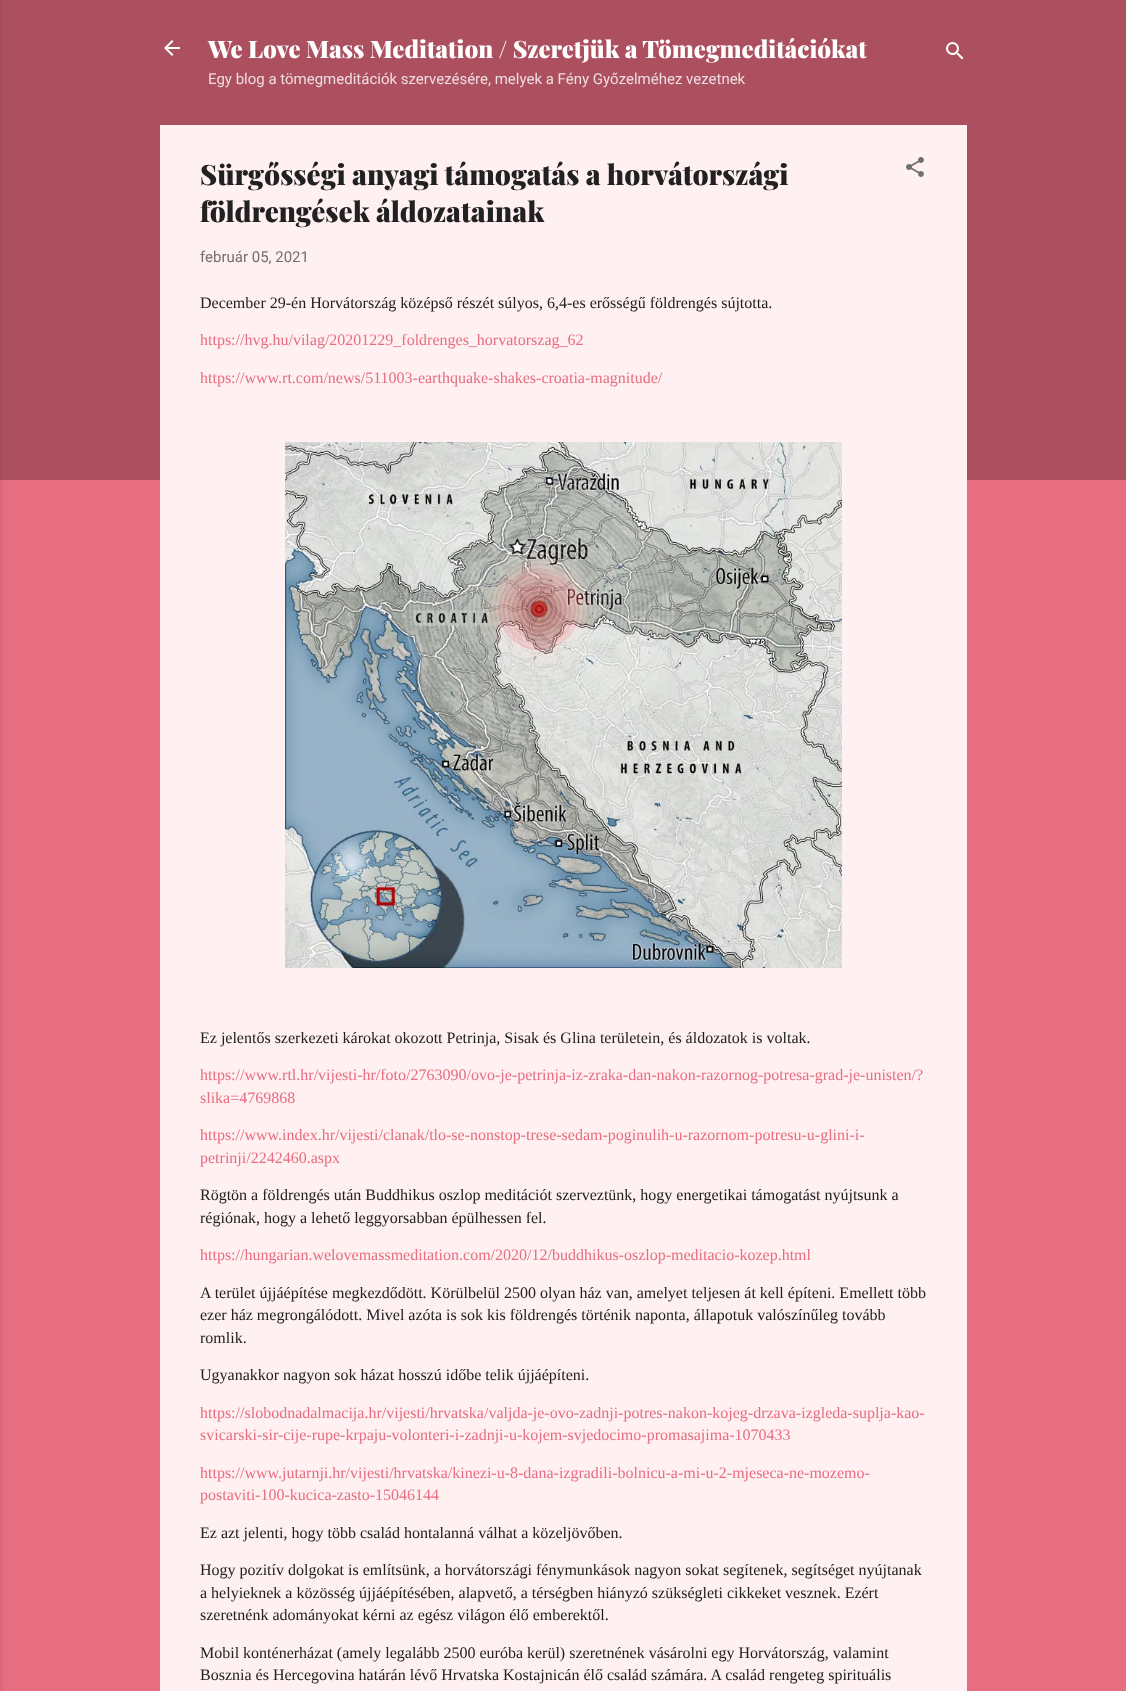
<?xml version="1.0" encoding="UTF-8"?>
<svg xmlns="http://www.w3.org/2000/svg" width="1126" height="1691">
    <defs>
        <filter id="blur1" x="-50%" y="-200%" width="200%" height="500%"><feGaussianBlur stdDeviation="1.5"/></filter>
    </defs>
    <rect width="100%" height="100%" fill="#E76D80"/>
    <rect x="0" y="0" width="1126" height="480" fill="#AC505F"/>
    <rect x="-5" y="1" width="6" height="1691" fill="#000000" fill-opacity="0.1" filter="url(#blur1)"/>
    <image x="164" y="40" width="16" height="16" href="img_01.png"/>
    <text x="208" y="58" font-family="Playfair Display" font-size="24" font-weight="900" fill="#FFFFFF">We Love Mass Meditation / Szeretjük a Tömegmeditációkat</text>
    <text x="208" y="84" font-family="Roboto" font-size="15" fill="#EEDCDF">Egy blog a tömegmeditációk szervezésére, melyek a Fény Győzelméhez vezetnek</text>
    <image x="946" y="42" width="18" height="18" href="img_02.png"/>
    <rect x="160" y="125" width="807" height="1566" fill="#FFF0F2"/>
    <text font-family="Playfair Display" font-size="28" font-weight="900" fill="#212121">
        <tspan x="200" y="185">Sürgősségi anyagi támogatás a horvátországi</tspan>
        <tspan x="200" y="222">földrengések áldozatainak</tspan>
    </text>
    <image x="906" y="157" width="18" height="20" href="img_03.png"/>
    <text x="200" y="262" font-family="Roboto" font-size="15" fill="#756E6F">február 05, 2021</text>
    <text x="200" y="308" font-family="Liberation Serif" font-size="16" fill="#212121">December 29-én Horvátország középső részét súlyos, 6,4-es erősségű földrengés sújtotta.</text>
    <text x="200" y="345" font-family="Liberation Serif" font-size="16" fill="#E76D80">https://hvg.hu/vilag/20201229_foldrenges_horvatorszag_62</text>
    <text x="200" y="383" font-family="Liberation Serif" font-size="16" fill="#E76D80">https://www.rt.com/news/511003-earthquake-shakes-croatia-magnitude/</text>
    <image x="285" y="442" width="557" height="526" href="img_04.png"/>
    <text x="200" y="1043" font-family="Liberation Serif" font-size="16" fill="#212121">Ez jelentős szerkezeti károkat okozott Petrinja, Sisak és Glina területein, és áldozatok is voltak.</text>
    <text font-family="Liberation Serif" font-size="16" fill="#E76D80">
        <tspan x="200" y="1080">https://www.rtl.hr/vijesti-hr/foto/2763090/ovo-je-petrinja-iz-zraka-dan-nakon-razornog-potresa-grad-je-unisten/?</tspan>
        <tspan x="200" y="1103">slika=4769868</tspan>
    </text>
    <text font-family="Liberation Serif" font-size="16" fill="#E76D80">
        <tspan x="200" y="1140">https://www.index.hr/vijesti/clanak/tlo-se-nonstop-trese-sedam-poginulih-u-razornom-potresu-u-glini-i-</tspan>
        <tspan x="200" y="1163">petrinji/2242460.aspx</tspan>
    </text>
    <text font-family="Liberation Serif" font-size="16" fill="#212121">
        <tspan x="200" y="1200">Rögtön a földrengés után Buddhikus oszlop meditációt szerveztünk, hogy energetikai támogatást nyújtsunk a</tspan>
        <tspan x="200" y="1223">régiónak, hogy a lehető leggyorsabban épülhessen fel.</tspan>
    </text>
    <text x="200" y="1260" font-family="Liberation Serif" font-size="16" fill="#E76D80">https://hungarian.welovemassmeditation.com/2020/12/buddhikus-oszlop-meditacio-kozep.html</text>
    <text font-family="Liberation Serif" font-size="16" fill="#212121">
        <tspan x="200" y="1298">A terület újjáépítése megkezdődött. Körülbelül 2500 olyan ház van, amelyet teljesen át kell építeni. Emellett több</tspan>
        <tspan x="200" y="1320">ezer ház megrongálódott. Mivel azóta is sok kis földrengés történik naponta, állapotuk valószínűleg tovább</tspan>
        <tspan x="200" y="1343">romlik.</tspan>
    </text>
    <text x="200" y="1380" font-family="Liberation Serif" font-size="16" fill="#212121">Ugyanakkor nagyon sok házat hosszú időbe telik újjáépíteni.</text>
    <text font-family="Liberation Serif" font-size="16" fill="#E76D80">
        <tspan x="200" y="1418">https://slobodnadalmacija.hr/vijesti/hrvatska/valjda-je-ovo-zadnji-potres-nakon-kojeg-drzava-izgleda-suplja-kao-</tspan>
        <tspan x="200" y="1440">svicarski-sir-cije-rupe-krpaju-volonteri-i-zadnji-u-kojem-svjedocimo-promasajima-1070433</tspan>
    </text>
    <text font-family="Liberation Serif" font-size="16" fill="#E76D80">
        <tspan x="200" y="1478">https://www.jutarnji.hr/vijesti/hrvatska/kinezi-u-8-dana-izgradili-bolnicu-a-mi-u-2-mjeseca-ne-mozemo-</tspan>
        <tspan x="200" y="1500">postaviti-100-kucica-zasto-15046144</tspan>
    </text>
    <text x="200" y="1538" font-family="Liberation Serif" font-size="16" fill="#212121">Ez azt jelenti, hogy több család hontalanná válhat a közeljövőben.</text>
    <text font-family="Liberation Serif" font-size="16" fill="#212121">
        <tspan x="200" y="1575">Hogy pozitív dolgokat is említsünk, a horvátországi fénymunkások nagyon sokat segítenek, segítséget nyújtanak</tspan>
        <tspan x="200" y="1598">a helyieknek a közösség újjáépítésében, alapvető, a térségben hiányzó szükségleti cikkeket vesznek. Ezért</tspan>
        <tspan x="200" y="1620">szeretnénk adományokat kérni az egész világon élő emberektől.</tspan>
    </text>
    <text font-family="Liberation Serif" font-size="16" fill="#212121">
        <tspan x="200" y="1658">Mobil konténerházat (amely legalább 2500 euróba kerül) szeretnének vásárolni egy Horvátország, valamint</tspan>
        <tspan x="200" y="1680">Bosznia és Hercegovina határán lévő Hrvatska Kostajnicán élő család számára. A család rengeteg spirituális</tspan>
    </text>
</svg>
